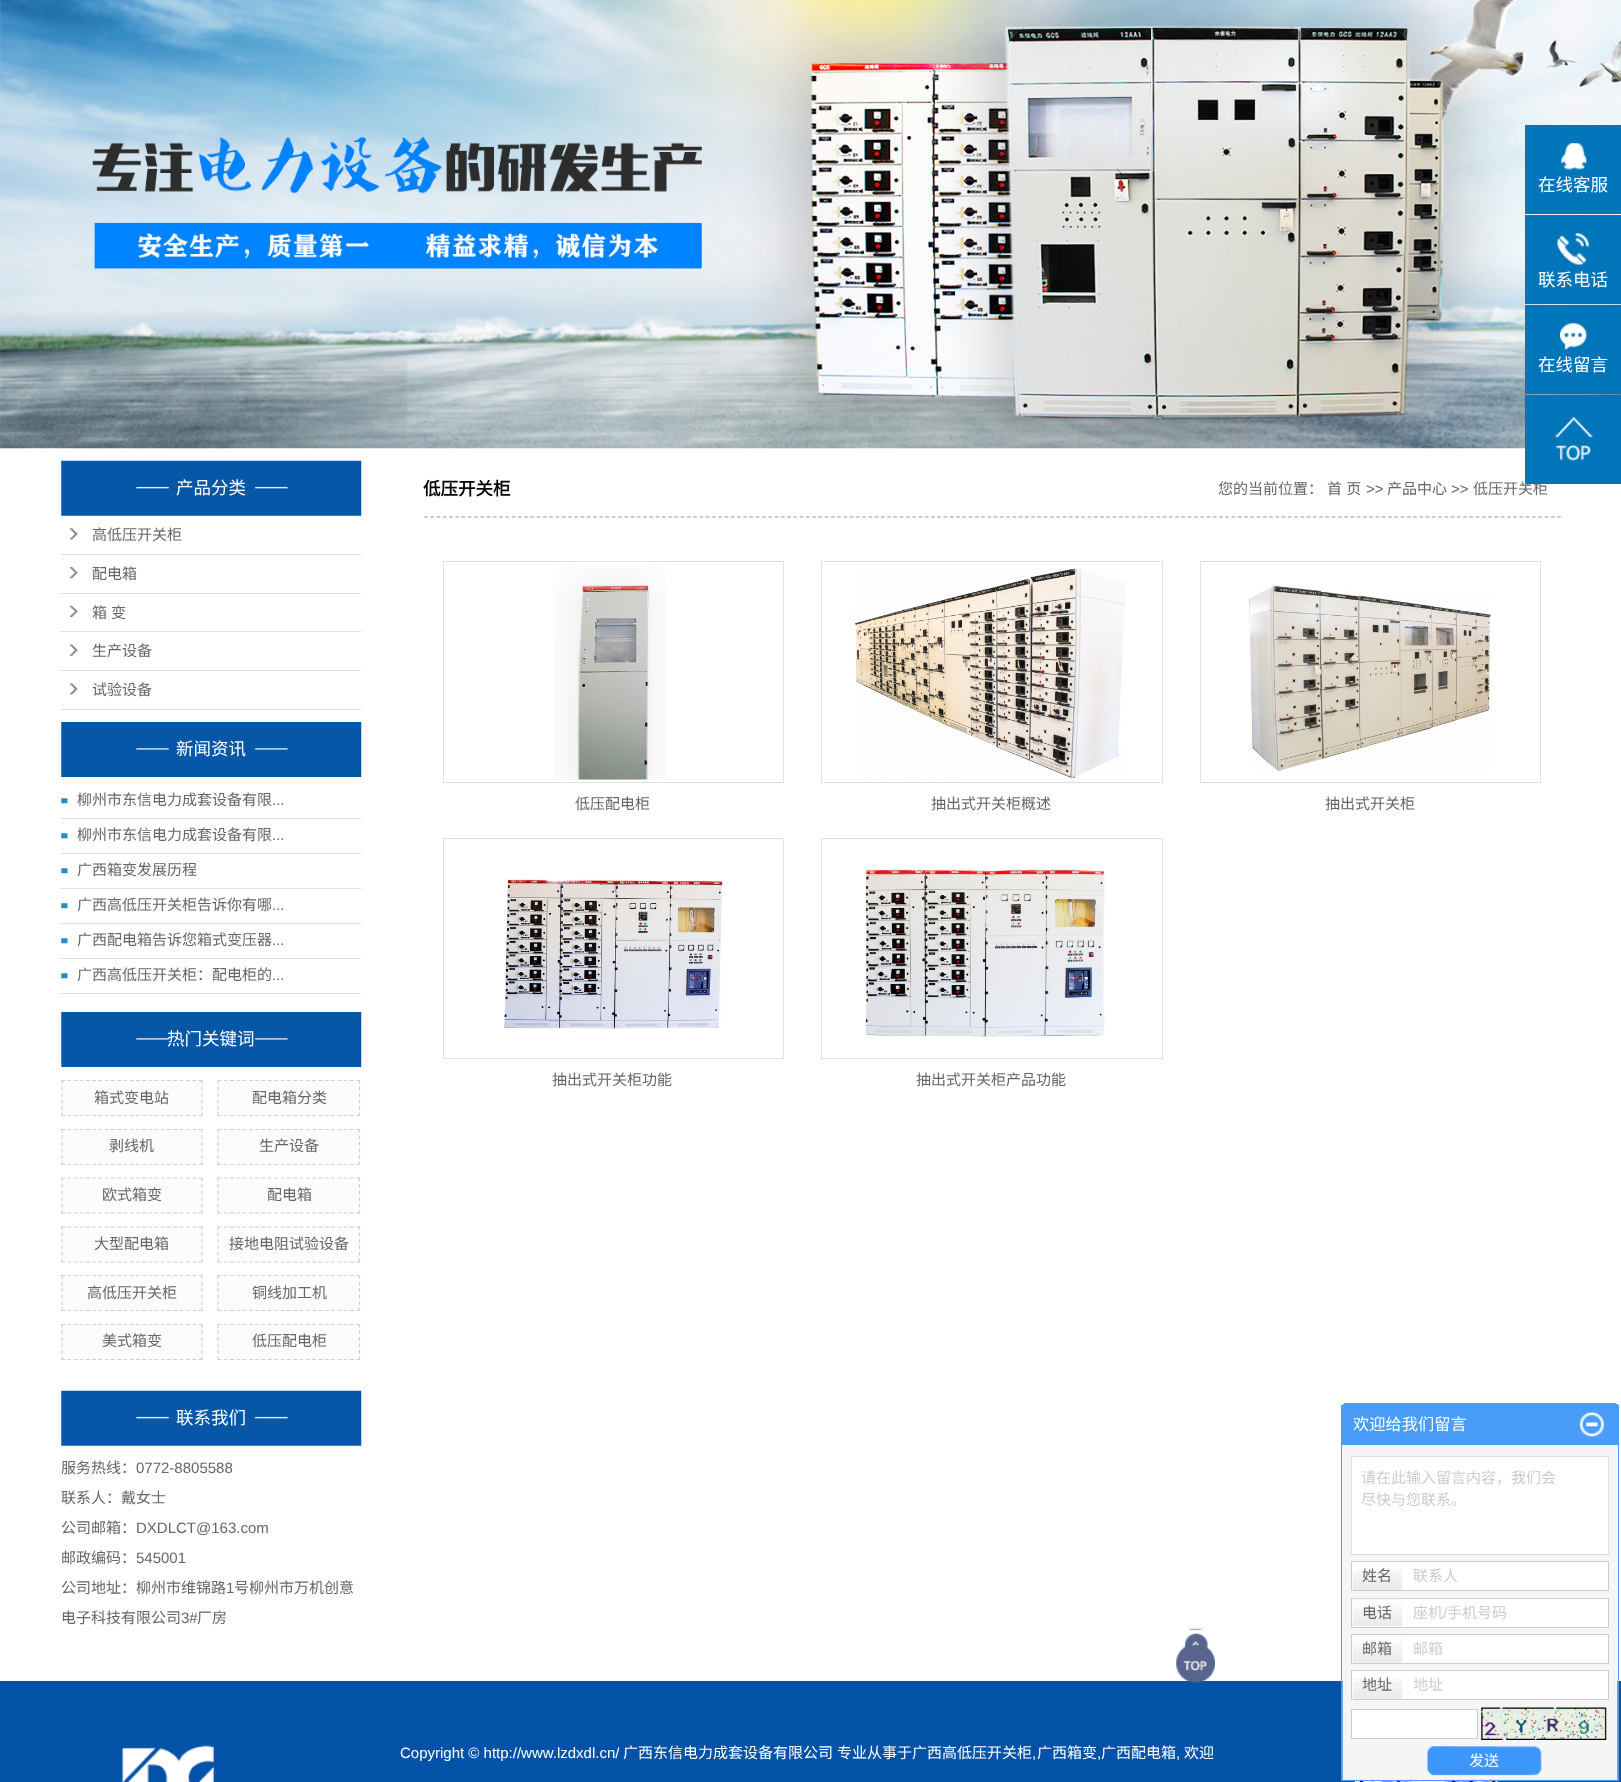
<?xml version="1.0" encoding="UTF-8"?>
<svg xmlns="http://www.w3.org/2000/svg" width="1621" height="1782">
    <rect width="100%" height="100%" fill="#FFFFFF"/>
    <image x="0" y="0" width="1621" height="449" href="img_01.png"/>
    <rect x="1525" y="125" width="96" height="89" fill="#0075B9"/>
    <image x="1561" y="143" width="26" height="27" href="img_02.png"/>
    <text x="1538" y="191" font-family="Noto Sans CJK SC" font-size="17.5" fill="#FFFFFF">在线客服</text>
    <rect x="1525" y="215" width="96" height="89" fill="#0075B9"/>
    <image x="1557" y="233" width="32" height="32" href="img_03.png"/>
    <text x="1538" y="286" font-family="Noto Sans CJK SC" font-size="17.5" fill="#FFFFFF">联系电话</text>
    <rect x="1525" y="305" width="96" height="89" fill="#0075B9"/>
    <image x="1560" y="323" width="27" height="27" href="img_04.png"/>
    <text x="1538" y="371" font-family="Noto Sans CJK SC" font-size="17.5" fill="#FFFFFF">在线留言</text>
    <text x="1473" y="494" font-family="Noto Sans CJK SC" font-size="15" fill="#666666">低压开关柜</text>
    <rect x="1525" y="395" width="96" height="89" fill="#0075B9"/>
    <image x="1555" y="416" width="38" height="45" href="img_05.png"/>
    <image x="61" y="460" width="301" height="56" href="img_06.png"/>
    <text x="176" y="494" font-family="Noto Sans CJK SC" font-size="17.5" fill="#FFFFFF">产品分类</text>
    <image x="69" y="528" width="9" height="12" href="img_07.png"/>
    <rect x="61" y="554" width="300" height="1" fill="#DDDDDD"/>
    <text x="92" y="540" font-family="Noto Sans CJK SC" font-size="15" fill="#666666">高低压开关柜</text>
    <image x="69" y="566" width="9" height="13" href="img_08.png"/>
    <rect x="61" y="593" width="300" height="1" fill="#DDDDDD"/>
    <text x="92" y="579" font-family="Noto Sans CJK SC" font-size="15" fill="#666666">配电箱</text>
    <image x="69" y="605" width="9" height="12" href="img_09.png"/>
    <rect x="61" y="631" width="300" height="1" fill="#DDDDDD"/>
    <text x="92" y="618" font-family="Noto Sans CJK SC" font-size="15" fill="#666666">箱</text>
    <text x="111" y="618" font-family="Noto Sans CJK SC" font-size="15" fill="#666666">变</text>
    <image x="69" y="644" width="9" height="12" href="img_10.png"/>
    <rect x="61" y="670" width="300" height="1" fill="#DDDDDD"/>
    <text x="92" y="656" font-family="Noto Sans CJK SC" font-size="15" fill="#666666">生产设备</text>
    <image x="69" y="683" width="9" height="12" href="img_07.png"/>
    <rect x="61" y="709" width="300" height="1" fill="#DDDDDD"/>
    <text x="92" y="695" font-family="Noto Sans CJK SC" font-size="15" fill="#666666">试验设备</text>
    <image x="61" y="722" width="301" height="55" href="img_11.png"/>
    <text x="176" y="755" font-family="Noto Sans CJK SC" font-size="17.5" fill="#FFFFFF">新闻资讯</text>
    <image x="61" y="798" width="7" height="6" href="img_12.png"/>
    <rect x="61" y="818" width="300" height="1" fill="#DDDDDD"/>
    <text x="77" y="805" font-family="Noto Sans CJK SC" font-size="15" fill="#666666">柳州市东信电力成套设备有限</text>
    <text x="272" y="805" font-family="Liberation Sans" font-size="15" fill="#666666">...</text>
    <image x="61" y="833" width="7" height="6" href="img_12.png"/>
    <rect x="61" y="853" width="300" height="1" fill="#DDDDDD"/>
    <text x="77" y="840" font-family="Noto Sans CJK SC" font-size="15" fill="#666666">柳州市东信电力成套设备有限</text>
    <text x="272" y="840" font-family="Liberation Sans" font-size="15" fill="#666666">...</text>
    <image x="61" y="868" width="7" height="6" href="img_12.png"/>
    <rect x="61" y="888" width="300" height="1" fill="#DDDDDD"/>
    <text x="77" y="875" font-family="Noto Sans CJK SC" font-size="15" fill="#666666">广西箱变发展历程</text>
    <image x="61" y="903" width="7" height="6" href="img_12.png"/>
    <rect x="61" y="923" width="300" height="1" fill="#DDDDDD"/>
    <text x="77" y="910" font-family="Noto Sans CJK SC" font-size="15" fill="#666666">广西高低压开关柜告诉你有哪</text>
    <text x="272" y="910" font-family="Liberation Sans" font-size="15" fill="#666666">...</text>
    <image x="61" y="938" width="7" height="6" href="img_12.png"/>
    <rect x="61" y="958" width="300" height="1" fill="#DDDDDD"/>
    <text x="77" y="945" font-family="Noto Sans CJK SC" font-size="15" fill="#666666">广西配电箱告诉您箱式变压器</text>
    <text x="272" y="945" font-family="Liberation Sans" font-size="15" fill="#666666">...</text>
    <image x="61" y="973" width="7" height="6" href="img_12.png"/>
    <rect x="61" y="993" width="300" height="1" fill="#DDDDDD"/>
    <text x="77" y="980" font-family="Noto Sans CJK SC" font-size="15" fill="#666666">广西高低压开关柜：配电柜的</text>
    <text x="272" y="980" font-family="Liberation Sans" font-size="15" fill="#666666">...</text>
    <image x="61" y="1012" width="301" height="55" href="img_11.png"/>
    <text x="167" y="1045" font-family="Noto Sans CJK SC" font-size="17.5" fill="#FFFFFF">热门关键词</text>
    <rect x="61" y="1080" width="142" height="36" fill="#FCFCFC"/>
    <path d="M 61 1080.5 H 202.5" fill="none" stroke="#D0D0D0" stroke-width="1.2" stroke-dasharray="3.75 2.5"/>
    <path d="M 202 1080 V 1116" fill="none" stroke="#D0D0D0" stroke-width="1.2" stroke-dasharray="3.75 2.75"/>
    <path d="M 61 1115.5 H 202.5" fill="none" stroke="#D0D0D0" stroke-width="1.2" stroke-dasharray="3.75 2.5"/>
    <path d="M 62 1080 V 1116" fill="none" stroke="#D0D0D0" stroke-width="1.2" stroke-dasharray="3.75 2.75"/>
    <text x="94" y="1103" font-family="Noto Sans CJK SC" font-size="15" fill="#666666">箱式变电站</text>
    <rect x="218" y="1080" width="142" height="36" fill="#FCFCFC"/>
    <path d="M 217.5 1080.5 H 360" fill="none" stroke="#D0D0D0" stroke-width="1.2" stroke-dasharray="3.75 2.56"/>
    <path d="M 359.5 1080 V 1116" fill="none" stroke="#D0D0D0" stroke-width="1.2" stroke-dasharray="3.75 2.75"/>
    <path d="M 217.5 1115.5 H 360" fill="none" stroke="#D0D0D0" stroke-width="1.2" stroke-dasharray="3.75 2.56"/>
    <path d="M 218 1080 V 1116" fill="none" stroke="#D0D0D0" stroke-width="1.2" stroke-dasharray="3.75 2.75"/>
    <text x="252" y="1103" font-family="Noto Sans CJK SC" font-size="15" fill="#666666">配电箱分类</text>
    <rect x="61" y="1129" width="142" height="36" fill="#FCFCFC"/>
    <path d="M 61 1129.5 H 202.5" fill="none" stroke="#D0D0D0" stroke-width="1.2" stroke-dasharray="3.75 2.5"/>
    <path d="M 202 1129 V 1165" fill="none" stroke="#D0D0D0" stroke-width="1.2" stroke-dasharray="3.75 2.75"/>
    <path d="M 61 1164.5 H 202.5" fill="none" stroke="#D0D0D0" stroke-width="1.2" stroke-dasharray="3.75 2.5"/>
    <path d="M 62 1129 V 1165" fill="none" stroke="#D0D0D0" stroke-width="1.2" stroke-dasharray="3.75 2.75"/>
    <text x="109" y="1151" font-family="Noto Sans CJK SC" font-size="15" fill="#666666">剥线机</text>
    <rect x="218" y="1129" width="142" height="36" fill="#FCFCFC"/>
    <path d="M 217.5 1129.5 H 360" fill="none" stroke="#D0D0D0" stroke-width="1.2" stroke-dasharray="3.75 2.56"/>
    <path d="M 359.5 1129 V 1165" fill="none" stroke="#D0D0D0" stroke-width="1.2" stroke-dasharray="3.75 2.75"/>
    <path d="M 217.5 1164.5 H 360" fill="none" stroke="#D0D0D0" stroke-width="1.2" stroke-dasharray="3.75 2.56"/>
    <path d="M 218 1129 V 1165" fill="none" stroke="#D0D0D0" stroke-width="1.2" stroke-dasharray="3.75 2.75"/>
    <text x="259" y="1151" font-family="Noto Sans CJK SC" font-size="15" fill="#666666">生产设备</text>
    <rect x="61" y="1178" width="142" height="36" fill="#FCFCFC"/>
    <path d="M 61 1178 H 202.5" fill="none" stroke="#D0D0D0" stroke-width="1.2" stroke-dasharray="3.75 2.5"/>
    <path d="M 202 1177.5 V 1214" fill="none" stroke="#D0D0D0" stroke-width="1.2" stroke-dasharray="3.75 2.75"/>
    <path d="M 61 1213 H 202.5" fill="none" stroke="#D0D0D0" stroke-width="1.2" stroke-dasharray="3.75 2.5"/>
    <path d="M 62 1177.5 V 1214" fill="none" stroke="#D0D0D0" stroke-width="1.2" stroke-dasharray="3.75 2.75"/>
    <text x="102" y="1200" font-family="Noto Sans CJK SC" font-size="15" fill="#666666">欧式箱变</text>
    <rect x="218" y="1178" width="142" height="36" fill="#FCFCFC"/>
    <path d="M 217.5 1178 H 360" fill="none" stroke="#D0D0D0" stroke-width="1.2" stroke-dasharray="3.75 2.56"/>
    <path d="M 359.5 1177.5 V 1214" fill="none" stroke="#D0D0D0" stroke-width="1.2" stroke-dasharray="3.75 2.75"/>
    <path d="M 217.5 1213 H 360" fill="none" stroke="#D0D0D0" stroke-width="1.2" stroke-dasharray="3.75 2.56"/>
    <path d="M 218 1177.5 V 1214" fill="none" stroke="#D0D0D0" stroke-width="1.2" stroke-dasharray="3.75 2.75"/>
    <text x="267" y="1200" font-family="Noto Sans CJK SC" font-size="15" fill="#666666">配电箱</text>
    <rect x="61" y="1226" width="142" height="37" fill="#FCFCFC"/>
    <path d="M 61 1227 H 202.5" fill="none" stroke="#D0D0D0" stroke-width="1.2" stroke-dasharray="3.75 2.5"/>
    <path d="M 202 1226 V 1262.5" fill="none" stroke="#D0D0D0" stroke-width="1.2" stroke-dasharray="3.75 2.75"/>
    <path d="M 61 1262 H 202.5" fill="none" stroke="#D0D0D0" stroke-width="1.2" stroke-dasharray="3.75 2.5"/>
    <path d="M 62 1226 V 1262.5" fill="none" stroke="#D0D0D0" stroke-width="1.2" stroke-dasharray="3.75 2.75"/>
    <text x="94" y="1249" font-family="Noto Sans CJK SC" font-size="15" fill="#666666">大型配电箱</text>
    <rect x="218" y="1226" width="142" height="37" fill="#FCFCFC"/>
    <path d="M 217.5 1227 H 360" fill="none" stroke="#D0D0D0" stroke-width="1.2" stroke-dasharray="3.75 2.56"/>
    <path d="M 359.5 1226 V 1262.5" fill="none" stroke="#D0D0D0" stroke-width="1.2" stroke-dasharray="3.75 2.75"/>
    <path d="M 217.5 1262 H 360" fill="none" stroke="#D0D0D0" stroke-width="1.2" stroke-dasharray="3.75 2.56"/>
    <path d="M 218 1226 V 1262.5" fill="none" stroke="#D0D0D0" stroke-width="1.2" stroke-dasharray="3.75 2.75"/>
    <text x="229" y="1249" font-family="Noto Sans CJK SC" font-size="15" fill="#666666">接地电阻试验设备</text>
    <rect x="61" y="1275" width="142" height="36" fill="#FCFCFC"/>
    <path d="M 61 1275.5 H 202.5" fill="none" stroke="#D0D0D0" stroke-width="1.2" stroke-dasharray="3.75 2.5"/>
    <path d="M 202 1275 V 1311" fill="none" stroke="#D0D0D0" stroke-width="1.2" stroke-dasharray="3.75 2.75"/>
    <path d="M 61 1310.5 H 202.5" fill="none" stroke="#D0D0D0" stroke-width="1.2" stroke-dasharray="3.75 2.5"/>
    <path d="M 62 1275 V 1311" fill="none" stroke="#D0D0D0" stroke-width="1.2" stroke-dasharray="3.75 2.75"/>
    <text x="87" y="1298" font-family="Noto Sans CJK SC" font-size="15" fill="#666666">高低压开关柜</text>
    <rect x="218" y="1275" width="142" height="36" fill="#FCFCFC"/>
    <path d="M 217.5 1275.5 H 360" fill="none" stroke="#D0D0D0" stroke-width="1.2" stroke-dasharray="3.75 2.56"/>
    <path d="M 359.5 1275 V 1311" fill="none" stroke="#D0D0D0" stroke-width="1.2" stroke-dasharray="3.75 2.75"/>
    <path d="M 217.5 1310.5 H 360" fill="none" stroke="#D0D0D0" stroke-width="1.2" stroke-dasharray="3.75 2.56"/>
    <path d="M 218 1275 V 1311" fill="none" stroke="#D0D0D0" stroke-width="1.2" stroke-dasharray="3.75 2.75"/>
    <text x="252" y="1298" font-family="Noto Sans CJK SC" font-size="15" fill="#666666">铜线加工机</text>
    <rect x="61" y="1324" width="142" height="36" fill="#FCFCFC"/>
    <path d="M 61 1324.5 H 202.5" fill="none" stroke="#D0D0D0" stroke-width="1.2" stroke-dasharray="3.75 2.5"/>
    <path d="M 202 1324 V 1360" fill="none" stroke="#D0D0D0" stroke-width="1.2" stroke-dasharray="3.75 2.75"/>
    <path d="M 61 1359.5 H 202.5" fill="none" stroke="#D0D0D0" stroke-width="1.2" stroke-dasharray="3.75 2.5"/>
    <path d="M 62 1324 V 1360" fill="none" stroke="#D0D0D0" stroke-width="1.2" stroke-dasharray="3.75 2.75"/>
    <text x="102" y="1346" font-family="Noto Sans CJK SC" font-size="15" fill="#666666">美式箱变</text>
    <rect x="218" y="1324" width="142" height="36" fill="#FCFCFC"/>
    <path d="M 217.5 1324.5 H 360" fill="none" stroke="#D0D0D0" stroke-width="1.2" stroke-dasharray="3.75 2.56"/>
    <path d="M 359.5 1324 V 1360" fill="none" stroke="#D0D0D0" stroke-width="1.2" stroke-dasharray="3.75 2.75"/>
    <path d="M 217.5 1359.5 H 360" fill="none" stroke="#D0D0D0" stroke-width="1.2" stroke-dasharray="3.75 2.56"/>
    <path d="M 218 1324 V 1360" fill="none" stroke="#D0D0D0" stroke-width="1.2" stroke-dasharray="3.75 2.75"/>
    <text x="252" y="1346" font-family="Noto Sans CJK SC" font-size="15" fill="#666666">低压配电柜</text>
    <image x="61" y="1390" width="301" height="56" href="img_06.png"/>
    <text x="176" y="1424" font-family="Noto Sans CJK SC" font-size="17.5" fill="#FFFFFF">联系我们</text>
    <text x="61" y="1473" font-family="Noto Sans CJK SC" font-size="15" fill="#666666">服务热线：</text>
    <text x="136" y="1473" font-family="Liberation Sans" font-size="15" fill="#666666">0772-8805588</text>
    <text x="61" y="1503" font-family="Noto Sans CJK SC" font-size="15" fill="#666666">联系人：戴女士</text>
    <text x="61" y="1533" font-family="Noto Sans CJK SC" font-size="15" fill="#666666">公司邮箱：</text>
    <text x="136" y="1533" font-family="Liberation Sans" font-size="15" fill="#666666">DXDLCT@163.com</text>
    <text x="61" y="1563" font-family="Noto Sans CJK SC" font-size="15" fill="#666666">邮政编码：</text>
    <text x="136" y="1563" font-family="Liberation Sans" font-size="15" fill="#666666">545001</text>
    <text x="61" y="1593" font-family="Noto Sans CJK SC" font-size="15" fill="#666666">公司地址：柳州市维锦路</text>
    <text x="226" y="1593" font-family="Liberation Sans" font-size="15" fill="#666666">1</text>
    <text x="234" y="1593" font-family="Noto Sans CJK SC" font-size="15" fill="#666666">号柳州市万机创意</text>
    <text x="61" y="1623" font-family="Noto Sans CJK SC" font-size="15" fill="#666666">电子科技有限公司</text>
    <text x="181" y="1623" font-family="Liberation Sans" font-size="15" fill="#666666">3#</text>
    <text x="197" y="1623" font-family="Noto Sans CJK SC" font-size="15" fill="#666666">厂房</text>
    <path d="M 424 517 H 1561" fill="none" stroke="#999999" stroke-width="1.2" stroke-dasharray="3.75 2.51"/>
    <text x="423" y="495" font-family="Noto Sans CJK SC" font-size="17.5" font-weight="700" fill="#000000">低压开关柜</text>
    <text x="1218" y="494" font-family="Noto Sans CJK SC" font-size="15" fill="#666666">您的当前位置：</text>
    <text x="1327" y="494" word-spacing="1" font-family="Noto Sans CJK SC" font-size="15" fill="#666666">首 页</text>
    <text x="1366" y="494" font-family="Liberation Sans" font-size="15" fill="#666666">&gt;&gt;</text>
    <text x="1387" y="494" font-family="Noto Sans CJK SC" font-size="15" fill="#666666">产品中心</text>
    <text x="1451" y="494" font-family="Liberation Sans" font-size="15" fill="#666666">&gt;&gt;</text>
    <rect x="443.5" y="561.5" width="340" height="221" fill="none" stroke="#E0E1DC"/>
    <image x="553" y="567" width="113" height="213" href="img_13.png"/>
    <text x="575" y="809" font-family="Noto Sans CJK SC" font-size="15" fill="#666666">低压配电柜</text>
    <rect x="821.5" y="561.5" width="341" height="221" fill="none" stroke="#E0E1DC"/>
    <image x="854" y="568" width="272" height="211" href="img_14.png"/>
    <text x="931" y="809" font-family="Noto Sans CJK SC" font-size="15" fill="#666666">抽出式开关柜概述</text>
    <rect x="1200.5" y="561.5" width="340" height="221" fill="none" stroke="#E0E1DC"/>
    <image x="1249" y="585" width="242" height="187" href="img_15.png"/>
    <text x="1325" y="809" font-family="Noto Sans CJK SC" font-size="15" fill="#666666">抽出式开关柜</text>
    <rect x="443.5" y="838.5" width="340" height="220" fill="none" stroke="#E0E1DC"/>
    <image x="504" y="879" width="219" height="150" href="img_16.png"/>
    <text x="552" y="1085" font-family="Noto Sans CJK SC" font-size="15" fill="#666666">抽出式开关柜功能</text>
    <rect x="821.5" y="838.5" width="341" height="220" fill="none" stroke="#E0E1DC"/>
    <image x="865" y="869" width="240" height="168" href="img_17.png"/>
    <text x="916" y="1085" font-family="Noto Sans CJK SC" font-size="15" fill="#666666">抽出式开关柜产品功能</text>
    <rect x="0" y="1681" width="1621" height="101" fill="#0252A7"/>
    <image x="1176" y="1628" width="39" height="55" href="img_18.png"/>
    <rect x="1344" y="1403" width="272" height="1" fill="#4A9CF9"/>
    <rect x="1343" y="1404" width="275" height="1" fill="#4A9CF9"/>
    <rect x="1341" y="1405" width="278" height="39" fill="#4A9CF9"/>
    <text x="1353" y="1430" font-family="Noto Sans CJK SC" font-size="16.25" fill="#FFFFFF">欢迎给我们留言</text>
    <image x="1580" y="1412" width="24" height="25" href="img_19.png"/>
    <image x="1355" y="1779" width="143" height="3" href="img_28.png"/>
    <image x="1342" y="1445" width="276" height="335" href="img_20.png"/>
    <rect x="1341.5" y="1444.5" width="277" height="336" fill="none" stroke="#4A9CF9"/>
    <rect x="1351.5" y="1456.5" width="257" height="98" fill="#FFFFFF" stroke="#DEDEDE"/>
    <text font-family="Noto Sans CJK SC" font-size="15" fill="#CCCCCC">
        <tspan x="1361" y="1483">请在此输入留言内容，我们会</tspan>
        <tspan x="1361" y="1505">尽快与您联系。</tspan>
    </text>
    <rect x="1351.5" y="1561.5" width="257" height="29" fill="#FFFFFF" stroke="#CCCCCC"/>
    <image x="1352" y="1563" width="51" height="27" href="img_21.png"/>
    <text x="1362" y="1581" font-family="Noto Sans CJK SC" font-size="15" fill="#666666">姓名</text>
    <text x="1413" y="1581" font-family="Noto Sans CJK SC" font-size="15" fill="#CCCCCC">联系人</text>
    <rect x="1351.5" y="1598.5" width="257" height="29" fill="#FFFFFF" stroke="#CCCCCC"/>
    <image x="1352" y="1598" width="51" height="29" href="img_22.png"/>
    <text x="1362" y="1618" font-family="Noto Sans CJK SC" font-size="15" fill="#666666">电话</text>
    <text x="1413" y="1618" font-family="Noto Sans CJK SC" font-size="15" fill="#CCCCCC">座机</text>
    <text x="1443" y="1618" font-family="Liberation Sans" font-size="15" fill="#CCCCCC">/</text>
    <text x="1447" y="1618" font-family="Noto Sans CJK SC" font-size="15" fill="#CCCCCC">手机号码</text>
    <rect x="1351.5" y="1634.5" width="257" height="29" fill="#FFFFFF" stroke="#CCCCCC"/>
    <image x="1352" y="1635" width="51" height="28" href="img_23.png"/>
    <text x="1362" y="1654" font-family="Noto Sans CJK SC" font-size="15" fill="#666666">邮箱</text>
    <text x="1413" y="1654" font-family="Noto Sans CJK SC" font-size="15" fill="#CCCCCC">邮箱</text>
    <rect x="1351.5" y="1670.5" width="257" height="29" fill="#FFFFFF" stroke="#CCCCCC"/>
    <image x="1352" y="1678" width="51" height="21" href="img_24.png"/>
    <text x="1362" y="1690" font-family="Noto Sans CJK SC" font-size="15" fill="#666666">地址</text>
    <text x="1413" y="1690" font-family="Noto Sans CJK SC" font-size="15" fill="#CCCCCC">地址</text>
    <rect x="1351.5" y="1709.5" width="126" height="29" fill="#FFFFFF" stroke="#CCCCCC"/>
    <image x="1481" y="1707" width="126" height="33" href="img_25.png"/>
    <image x="1427" y="1746" width="115" height="30" href="img_26.png"/>
    <text x="1469" y="1766" font-family="Noto Sans CJK SC" font-size="15" fill="#FFFFFF">发送</text>
    <image x="121" y="1745" width="94" height="37" href="img_27.png"/>
    <text x="400" y="1758" font-family="Liberation Sans" font-size="15" fill="#FFFFFF">Copyright © http://www.lzdxdl.cn/</text>
    <text x="623" y="1758" font-family="Noto Sans CJK SC" font-size="15" fill="#FFFFFF">广西东信电力成套设备有限公司</text>
    <text x="837" y="1758" font-family="Noto Sans CJK SC" font-size="15" fill="#FFFFFF">专业从事于广西高低压开关柜</text>
    <text x="1032" y="1758" font-family="Liberation Sans" font-size="15" fill="#FFFFFF">,</text>
    <text x="1037" y="1758" font-family="Noto Sans CJK SC" font-size="15" fill="#FFFFFF">广西箱变</text>
    <text x="1097" y="1758" font-family="Liberation Sans" font-size="15" fill="#FFFFFF">,</text>
    <text x="1101" y="1758" font-family="Noto Sans CJK SC" font-size="15" fill="#FFFFFF">广西配电箱</text>
    <text x="1176" y="1758" font-family="Liberation Sans" font-size="15" fill="#FFFFFF">,</text>
    <text x="1184" y="1758" font-family="Noto Sans CJK SC" font-size="15" fill="#FFFFFF">欢迎</text>
</svg>
